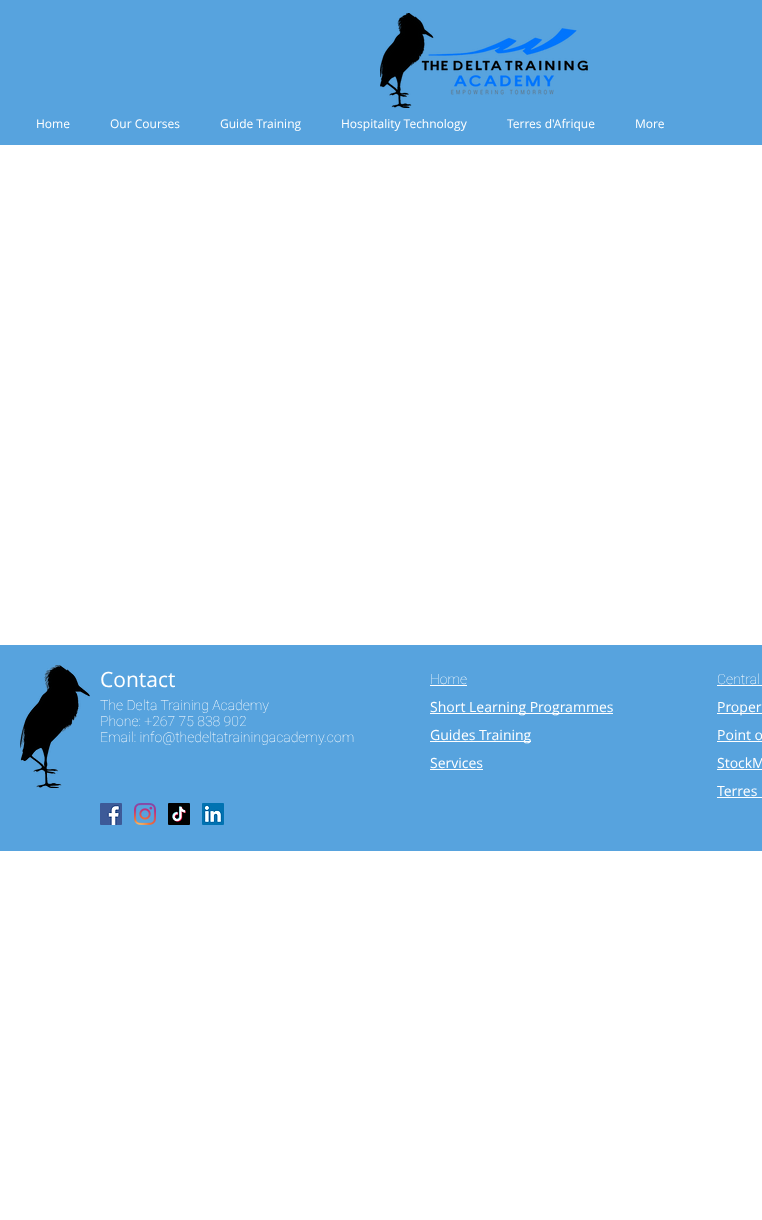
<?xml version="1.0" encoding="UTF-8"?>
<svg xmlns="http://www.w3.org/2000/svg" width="762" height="1220">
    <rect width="100%" height="100%" fill="#FFFFFF"/>
    <rect x="0" y="0" width="762" height="145" fill="#57A3DE"/>
    <image x="380" y="13" width="208" height="95" href="img_01.png"/>
    <text x="36" y="128" font-family="Open Sans" font-size="12" fill="#FFFFFF">Home</text>
    <text x="110" y="128" font-family="Open Sans" font-size="12" fill="#FFFFFF">Our Courses</text>
    <text x="220" y="128" font-family="Open Sans" font-size="12" fill="#FFFFFF">Guide Training</text>
    <text x="341" y="128" font-family="Open Sans" font-size="12" fill="#FFFFFF">Hospitality Technology</text>
    <text x="507" y="128" font-family="Open Sans" font-size="12" fill="#FFFFFF">Terres d'Afrique</text>
    <text x="635" y="128" font-family="Open Sans" font-size="12" fill="#FFFFFF">More</text>
    <rect x="0" y="645" width="762" height="206" fill="#57A3DE"/>
    <image x="20" y="665" width="70" height="123" href="img_02.png"/>
    <text x="100" y="687" font-family="Open Sans" font-size="21" fill="#FFFFFF">Contact</text>
    <text x="430" y="684" font-family="Roboto" font-size="14" font-weight="100" fill="#FFFFFF">Home</text>
    <rect x="430" y="685" width="37" height="1" fill="#FFFFFF"/>
    <rect x="430" y="713" width="183" height="1" fill="#FFFFFF"/>
    <text x="430" y="712" font-family="Open Sans" font-size="14" fill="#FFFFFF">Short Learning Programmes</text>
    <rect x="430" y="741" width="101" height="1" fill="#FFFFFF"/>
    <text x="430" y="740" font-family="Open Sans" font-size="14" fill="#FFFFFF">Guides Training</text>
    <text x="430" y="768" font-family="Open Sans" font-size="14" fill="#FFFFFF">Services</text>
    <rect x="430" y="769" width="53" height="1" fill="#FFFFFF"/>
    <text x="717" y="684" font-family="Roboto" font-size="14" font-weight="100" fill="#FFFFFF">Central</text>
    <rect x="717" y="685" width="45" height="1" fill="#FFFFFF"/>
    <rect x="717" y="713" width="45" height="1" fill="#FFFFFF"/>
    <text x="717" y="712" font-family="Open Sans" font-size="14" fill="#FFFFFF">Proper</text>
    <text x="717" y="740" font-family="Open Sans" font-size="14" fill="#FFFFFF">Point o</text>
    <rect x="717" y="741" width="45" height="1" fill="#FFFFFF"/>
    <text x="717" y="768" font-family="Open Sans" font-size="14" fill="#FFFFFF">StockM</text>
    <rect x="717" y="769" width="45" height="1" fill="#FFFFFF"/>
    <text x="717" y="796" font-family="Open Sans" font-size="14" fill="#FFFFFF">Terres</text>
    <rect x="717" y="797" width="45" height="1" fill="#FFFFFF"/>
    <text font-family="Roboto" font-size="14" font-weight="100" fill="#FFFFFF">
        <tspan x="100" y="710">The Delta Training Academy</tspan>
        <tspan x="100" y="726">Phone: +267 75 838 902</tspan>
        <tspan x="100" y="742">Email: info@thedeltatrainingacademy.com</tspan>
    </text>
    <image x="100" y="803" width="22" height="22" href="img_03.png"/>
    <image x="134" y="803" width="22" height="22" href="img_04.png"/>
    <image x="168" y="803" width="22" height="22" href="img_05.png"/>
    <image x="202" y="803" width="22" height="22" href="img_06.png"/>
</svg>
